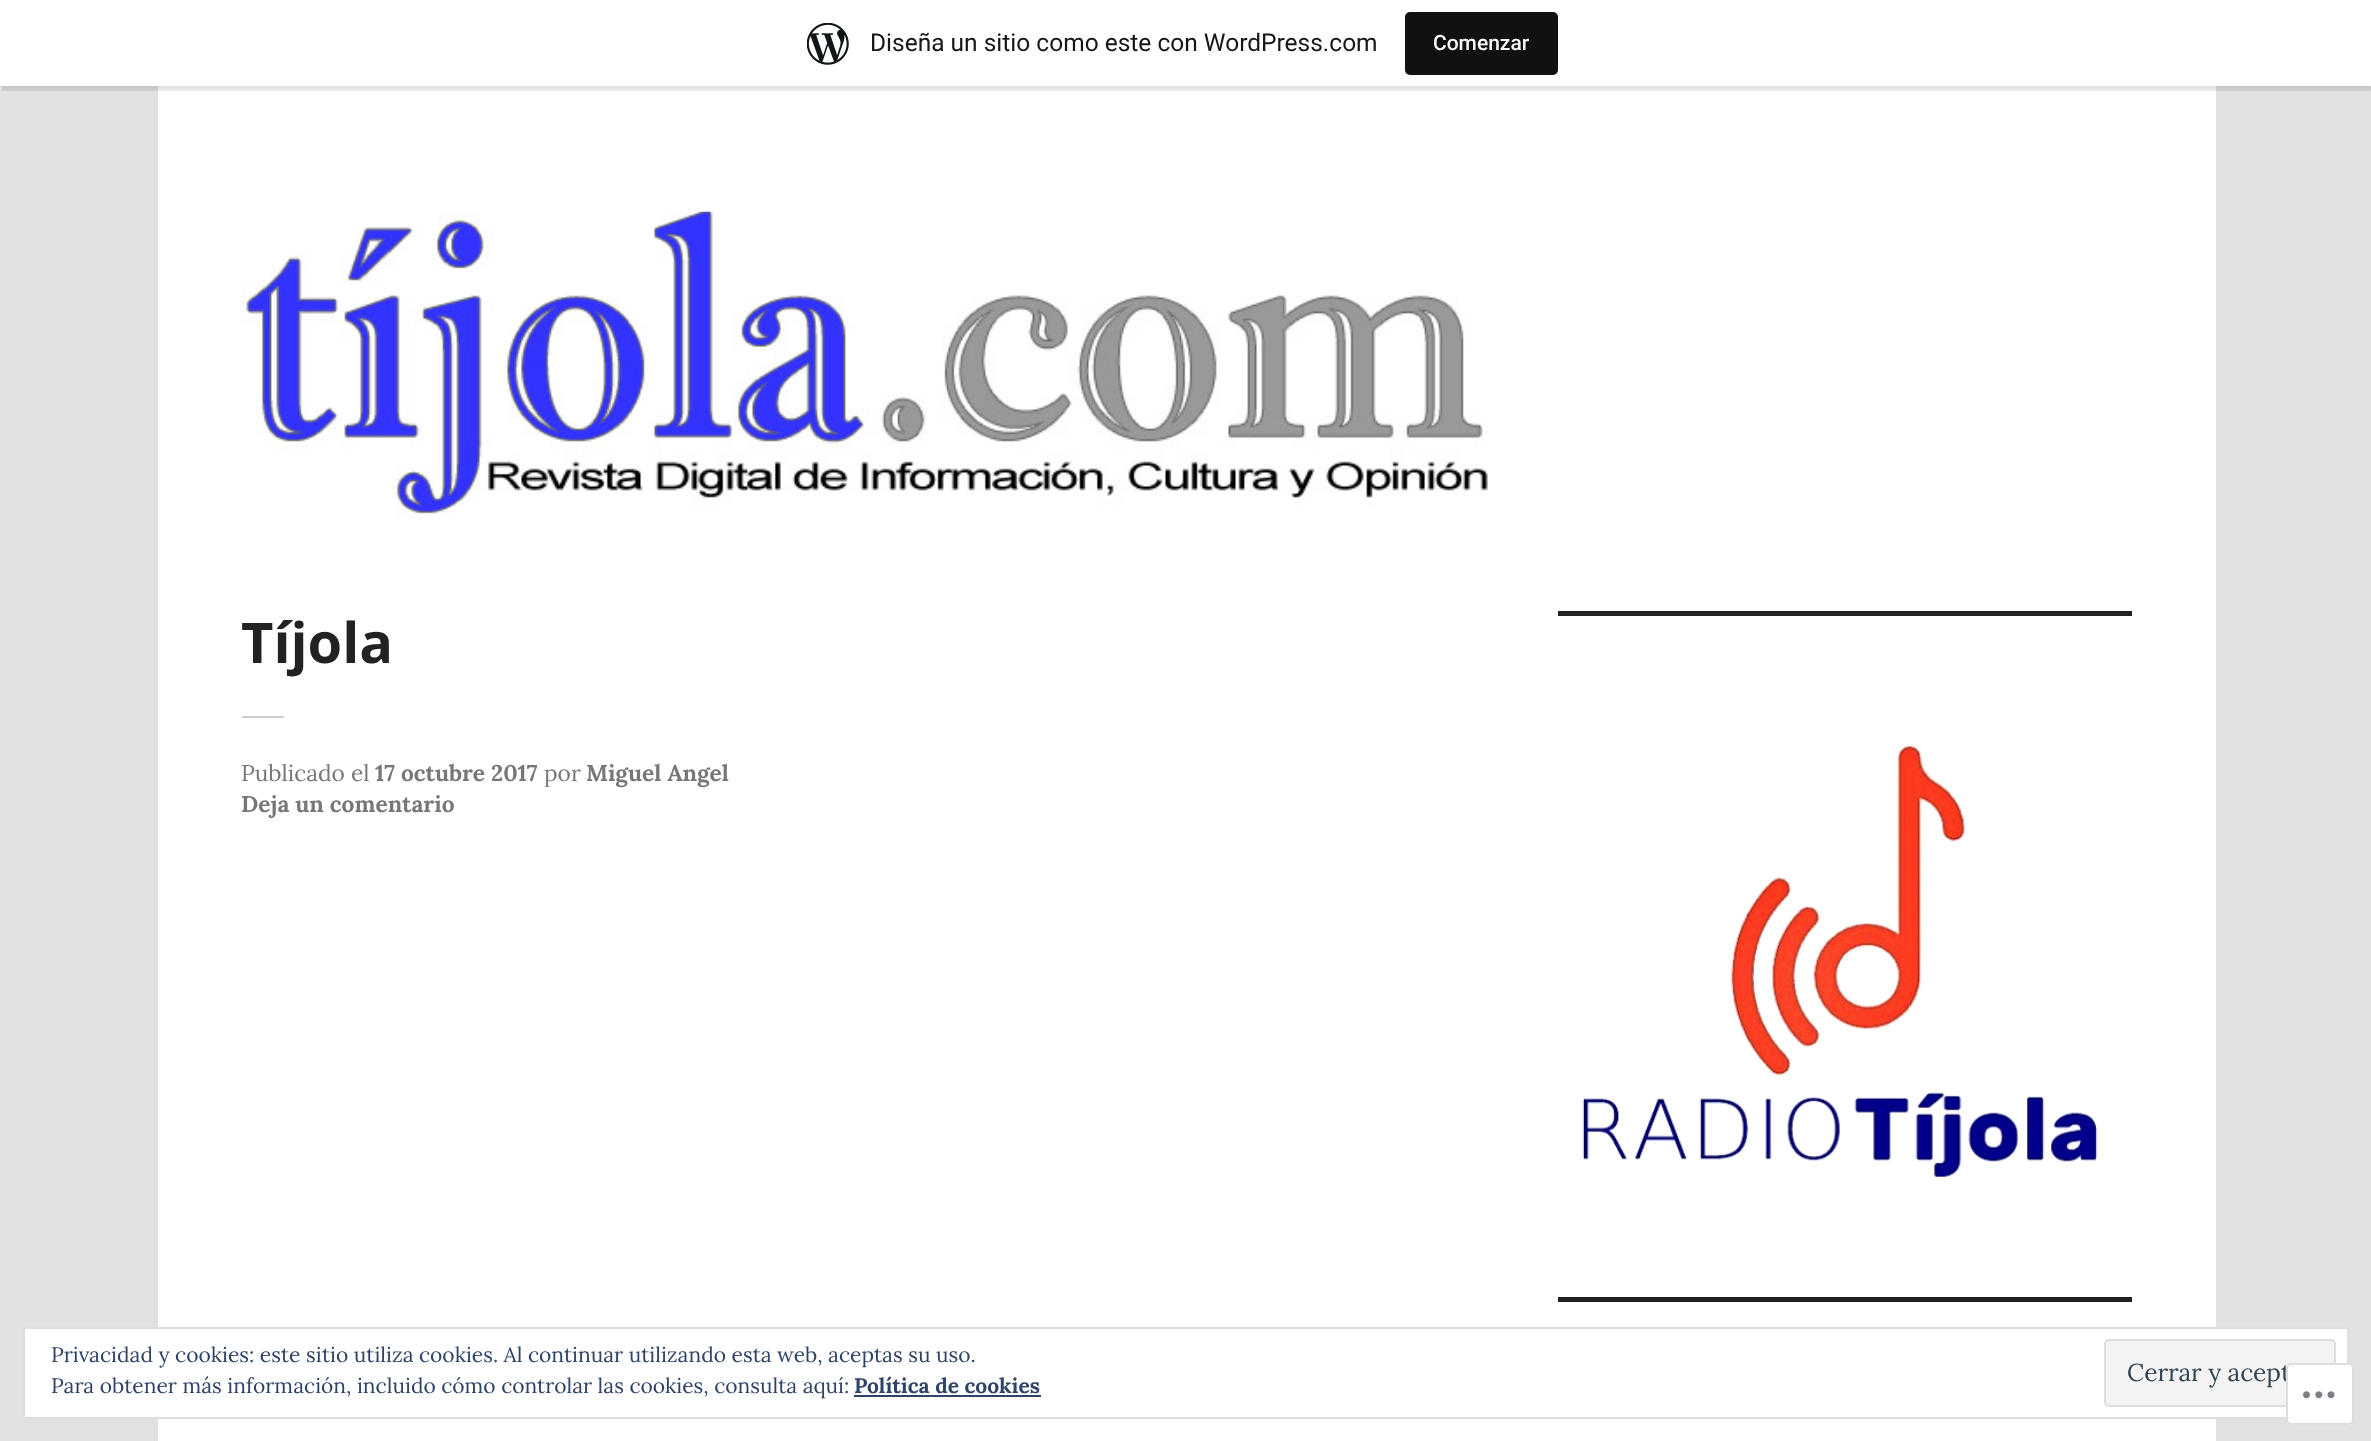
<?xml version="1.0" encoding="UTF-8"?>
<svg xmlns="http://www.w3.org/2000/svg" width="2371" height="1441">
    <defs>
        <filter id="blur1" x="-50%" y="-200%" width="200%" height="500%"><feGaussianBlur stdDeviation="2"/></filter>
    </defs>
    <rect width="100%" height="100%" fill="#E1E1E1"/>
    <rect x="158" y="86" width="2058" height="1355" fill="#FFFFFF"/>
    <rect x="0" y="2" width="2371" height="86" fill="#000000" fill-opacity="0.05" filter="url(#blur1)"/>
    <path d="M 2 86 V 91 H 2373 V 5 H 2371 V 86 Z" fill="#000000" fill-opacity="0.08"/>
    <rect x="0" y="0" width="2371" height="86" fill="#FFFFFF"/>
    <image x="807" y="23" width="42" height="42" href="img_01.png"/>
    <text x="870" y="51" font-family="Roboto" font-size="24.5" fill="#171717">Diseña un sitio como este con WordPress.com</text>
    <rect x="1405" y="12" width="153" height="63" rx="5" fill="#111111"/>
    <text x="1433" y="50" font-family="Roboto" font-size="21" font-weight="500" fill="#F6F7F7">Comenzar</text>
    <image x="241" y="211" width="1247" height="307" href="img_02.png"/>
    <text x="241" y="663" font-family="Open Sans" font-size="56" font-weight="700" fill="#222222">Tíjola</text>
    <rect x="242" y="716" width="42" height="2" fill="#CCCCCC"/>
    <text x="241" y="781" font-family="Lora" font-size="22.75" fill="#777777">Publicado el</text>
    <text x="375" y="781" font-family="Lora" font-size="22.75" font-weight="700" fill="#777777">17 octubre 2017</text>
    <text x="544" y="781" font-family="Lora" font-size="22.75" fill="#777777">por</text>
    <text x="586" y="781" font-family="Lora" font-size="22.75" font-weight="700" fill="#777777">Miguel Angel</text>
    <text x="241" y="812" font-family="Lora" font-size="22.75" font-weight="700" fill="#777777">Deja un comentario</text>
    <rect x="1558" y="611" width="574" height="5" fill="#222222"/>
    <image x="1582" y="745" width="516" height="432" href="img_03.png"/>
    <rect x="1558" y="1297" width="574" height="5" fill="#222222"/>
    <rect x="24" y="1328" width="2324" height="90" fill="#FFFFFF" stroke="#DEDEDE" stroke-width="2"/>
    <text font-family="Lora" font-size="21" fill="#2E4467">
        <tspan x="51" y="1362">Privacidad y cookies: este sitio utiliza cookies. Al continuar utilizando esta web, aceptas su uso.</tspan>
        <tspan x="51" y="1393">Para obtener más información, incluido cómo controlar las cookies, consulta aquí:</tspan>
    </text>
    <text x="854" y="1393" font-family="Lora" font-size="21" font-weight="700" fill="#2E4467">Política de cookies</text>
    <rect x="854" y="1395" width="187" height="2" fill="#2E4467"/>
    <rect x="2105" y="1340" width="230" height="66" rx="4" fill="#F3F3F3" stroke="#DEDEDE" stroke-width="2"/>
    <text x="2127" y="1381" font-family="Lora" font-size="24.5" fill="#2E4453">Cerrar y acept</text>
    <rect x="2286" y="1363" width="68" height="62" rx="5" fill="#FFFFFF" fill-opacity="0.98"/>
    <rect x="2287" y="1364" width="66" height="60" rx="4" fill="none" stroke="#DCDCDE" stroke-opacity="0.98" stroke-width="2"/>
    <image x="2303" y="1391" width="32" height="8" href="img_04.png"/>
</svg>
